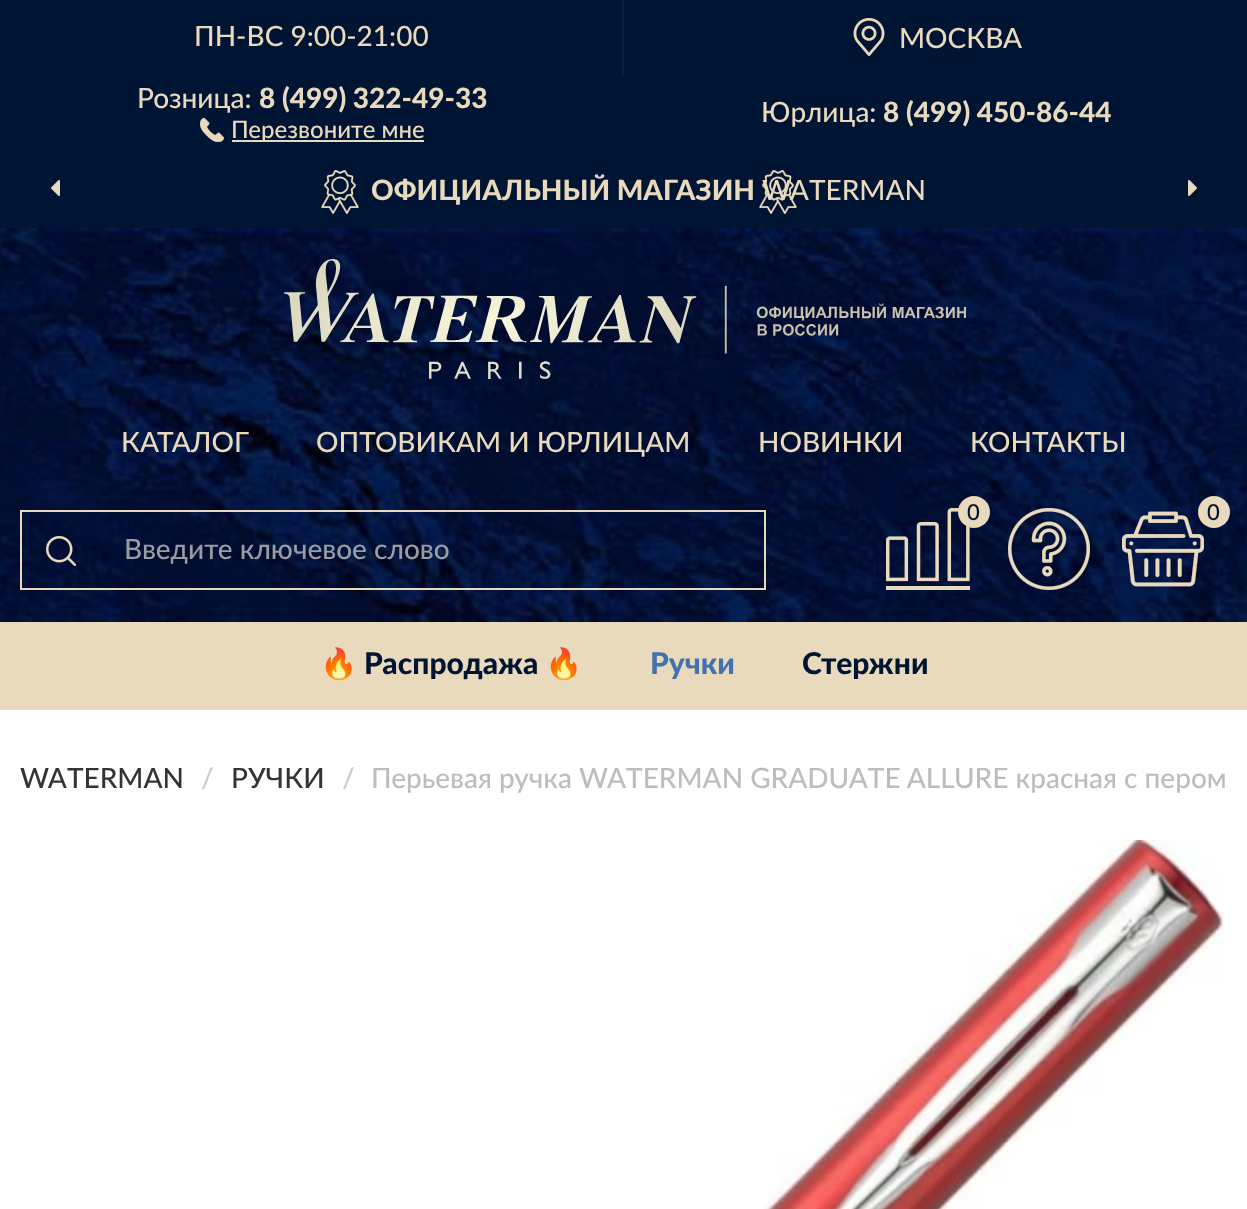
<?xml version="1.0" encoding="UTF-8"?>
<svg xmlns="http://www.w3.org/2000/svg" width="1247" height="1209">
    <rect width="100%" height="100%" fill="#FFFFFF"/>
    <rect x="0" y="0" width="1247" height="228" fill="#001433"/>
    <rect x="622" y="0" width="2" height="76" fill="#081F42"/>
    <text x="194" y="46" font-family="Lato" font-size="28" font-weight="500" fill="#E9D9BD">ПН-ВС 9:00-21:00</text>
    <image x="853" y="18" width="32" height="38" href="img_01.png"/>
    <text x="899" y="48" font-family="Lato" font-size="28" font-weight="500" fill="#E9D9BD">МОСКВА</text>
    <text x="137" y="108" font-family="Lato" font-size="28" font-weight="500" fill="#E9D9BD">Розница:</text>
    <text x="259" y="108" font-family="Lato" font-size="28" font-weight="900" fill="#E9D9BD">8 (499) 322-49-33</text>
    <image x="200" y="118" width="24" height="24" href="img_02.png"/>
    <rect x="232" y="140" width="192" height="2" fill="#E9D9BD"/>
    <text x="231" y="138" font-family="Lato" font-size="24" font-weight="500" fill="#E9D9BD">Перезвоните мне</text>
    <text x="761" y="122" font-family="Lato" font-size="28" font-weight="500" fill="#E9D9BD">Юрлица:</text>
    <text x="883" y="122" font-family="Lato" font-size="28" font-weight="900" fill="#E9D9BD">8 (499) 450-86-44</text>
    <image x="321" y="170" width="476" height="44" href="img_03.png"/>
    <text x="371" y="200" font-family="Lato" font-size="28" font-weight="900" fill="#E9D9BD">ОФИЦИАЛЬНЫЙ МАГАЗИН</text>
    <text x="762" y="200" font-family="Lato" font-size="28" font-weight="500" fill="#E9D9BD">WATERMAN</text>
    <image x="51" y="180" width="9" height="16" href="img_04.png"/>
    <image x="1188" y="180" width="9" height="16" href="img_05.png"/>
    <image x="0" y="228" width="1247" height="394" href="img_06.png"/>
    <image x="284" y="259" width="682" height="120" href="img_07.png"/>
    <text x="121" y="452" font-family="Lato" font-size="28" font-weight="500" fill="#E9D9BD">КАТАЛОГ</text>
    <text x="316" y="452" font-family="Lato" font-size="28" font-weight="500" fill="#E9D9BD">ОПТОВИКАМ И ЮРЛИЦАМ</text>
    <text x="758" y="452" font-family="Lato" font-size="28" font-weight="500" fill="#E9D9BD">НОВИНКИ</text>
    <text x="970" y="452" font-family="Lato" font-size="28" font-weight="500" fill="#E9D9BD">КОНТАКТЫ</text>
    <image x="886" y="508" width="84" height="82" href="img_08.png"/>
    <circle cx="974" cy="512" r="16" fill="#E9D9BD"/>
    <text x="967" y="520" font-family="Lato" font-size="22" font-weight="500" fill="#001433">0</text>
    <image x="1008" y="508" width="82" height="82" href="img_09.png"/>
    <image x="1122" y="511" width="82" height="76" href="img_10.png"/>
    <circle cx="1214" cy="512" r="16" fill="#E9D9BD"/>
    <text x="1207" y="520" font-family="Lato" font-size="22" font-weight="500" fill="#001433">0</text>
    <image x="46" y="536" width="30" height="30" href="img_11.png"/>
    <rect x="20" y="510" width="746" height="2" fill="#E9D9BD"/>
    <rect x="20" y="588" width="80" height="2" fill="#E9D9BD"/>
    <rect x="20" y="510" width="2" height="80" fill="#E9D9BD"/>
    <rect x="764" y="510" width="2" height="80" fill="#E9D9BD"/>
    <rect x="100" y="588" width="666" height="2" fill="#E9D9BD"/>
    <text x="124" y="559" font-family="Lato" font-size="28" font-weight="500" fill="#999CA1">Введите ключевое слово</text>
    <rect x="0" y="622" width="1247" height="88" fill="#E9D9BD"/>
    <text x="320" y="674" font-family="Noto Color Emoji" font-size="30" fill="#001433">🔥</text>
    <text x="364" y="674" font-family="Lato" font-size="30" font-weight="900" fill="#001433">Распродажа</text>
    <text x="545" y="674" font-family="Noto Color Emoji" font-size="30" fill="#001433">🔥</text>
    <text x="650" y="674" font-family="Lato" font-size="30" font-weight="900" fill="#4173AF">Ручки</text>
    <text x="802" y="674" font-family="Lato" font-size="30" font-weight="900" fill="#001433">Стержни</text>
    <text x="20" y="788" font-family="Lato" font-size="28" font-weight="500" fill="#333333">WATERMAN</text>
    <text x="201" y="788" font-family="Lato" font-size="28" font-weight="500" fill="#CCCCCC">/</text>
    <text x="231" y="788" font-family="Lato" font-size="28" font-weight="500" fill="#333333">РУЧКИ</text>
    <text x="342" y="788" font-family="Lato" font-size="28" font-weight="500" fill="#CCCCCC">/</text>
    <text x="371" y="788" font-family="Lato" font-size="28" font-weight="500" fill="#BDBDBD">Перьевая ручка WATERMAN GRADUATE ALLURE красная с пером</text>
    <image x="764" y="840" width="460" height="369" href="img_12.png"/>
</svg>
